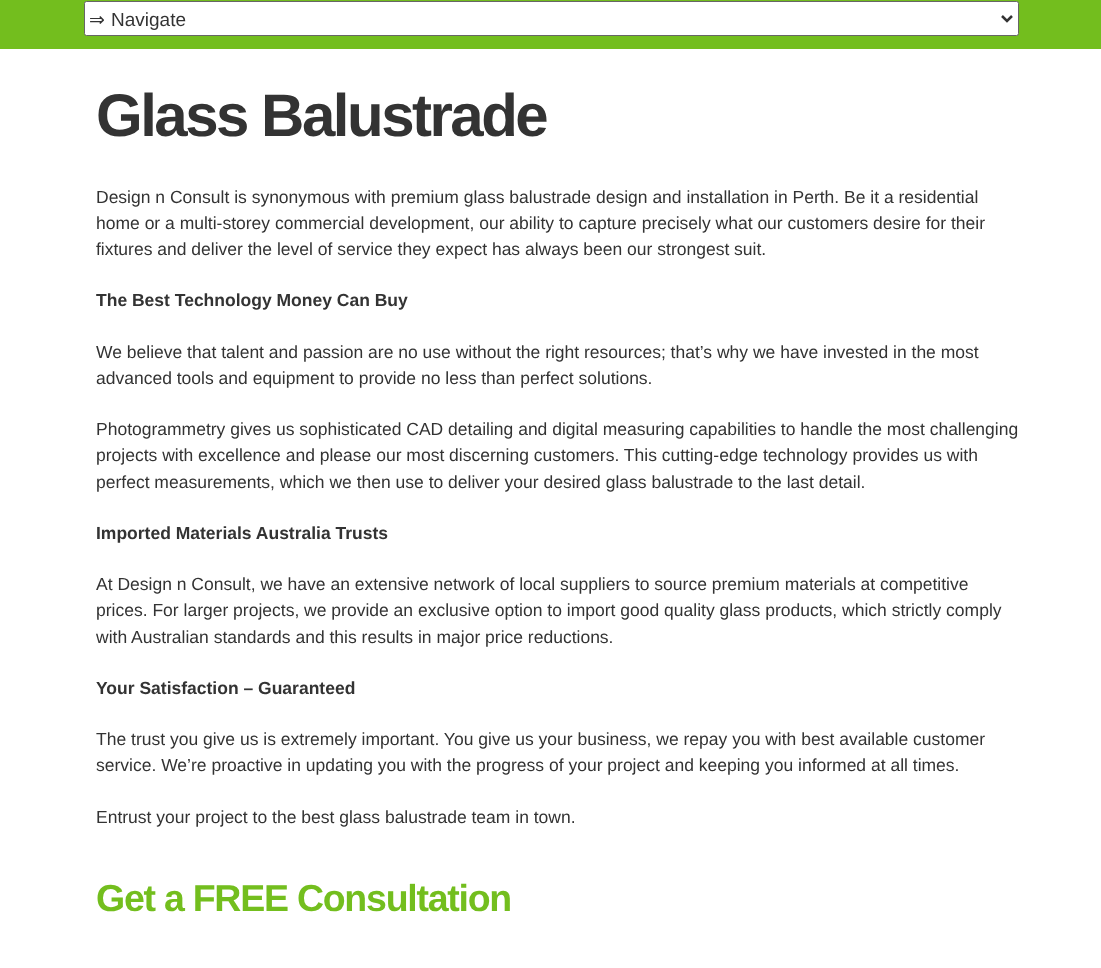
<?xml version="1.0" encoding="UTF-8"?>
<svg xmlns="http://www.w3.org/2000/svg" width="1101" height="968">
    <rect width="100%" height="100%" fill="#73BE1E"/>
    <rect x="84.5" y="1.5" width="934" height="34" rx="2" fill="#FFFFFF" stroke="#666666"/>
    <path d="M 1002 16 L 1007 21 L 1012 16" fill="none" stroke="#333333" stroke-width="2.5"/>
    <text x="89" y="26" font-family="DejaVu Sans" font-size="19" fill="#333333">⇒</text>
    <text x="111" y="26" font-family="Liberation Sans" font-size="19" fill="#333333">Navigate</text>
    <rect x="0" y="49" width="1101" height="919" fill="#FFFFFF"/>
    <text x="96" y="136" font-family="Liberation Sans" font-size="60" font-weight="700" letter-spacing="-2.5" fill="#333333">Glass Balustrade</text>
    <text font-family="Liberation Sans" font-size="17.5" fill="#333333">
        <tspan x="96" y="203">Design n Consult is synonymous with premium glass balustrade design and installation in Perth. Be it a residential</tspan>
        <tspan x="96" y="229">home or a multi-storey commercial development, our ability to capture precisely what our customers desire for their</tspan>
        <tspan x="96" y="255">fixtures and deliver the level of service they expect has always been our strongest suit.</tspan>
    </text>
    <text x="96" y="306" font-family="Liberation Sans" font-size="17.5" font-weight="700" fill="#333333">The Best Technology Money Can Buy</text>
    <text font-family="Liberation Sans" font-size="17.5" fill="#333333">
        <tspan x="96" y="358">We believe that talent and passion are no use without the right resources; that’s why we have invested in the most</tspan>
        <tspan x="96" y="384">advanced tools and equipment to provide no less than perfect solutions.</tspan>
    </text>
    <text font-family="Liberation Sans" font-size="17.5" fill="#333333">
        <tspan x="96" y="435">Photogrammetry gives us sophisticated CAD detailing and digital measuring capabilities to handle the most challenging</tspan>
        <tspan x="96" y="461">projects with excellence and please our most discerning customers. This cutting-edge technology provides us with</tspan>
        <tspan x="96" y="488">perfect measurements, which we then use to deliver your desired glass balustrade to the last detail.</tspan>
    </text>
    <text x="96" y="539" font-family="Liberation Sans" font-size="17.5" font-weight="700" fill="#333333">Imported Materials Australia Trusts</text>
    <text font-family="Liberation Sans" font-size="17.5" fill="#333333">
        <tspan x="96" y="590">At Design n Consult, we have an extensive network of local suppliers to source premium materials at competitive</tspan>
        <tspan x="96" y="616">prices. For larger projects, we provide an exclusive option to import good quality glass products, which strictly comply</tspan>
        <tspan x="96" y="643">with Australian standards and this results in major price reductions.</tspan>
    </text>
    <text x="96" y="694" font-family="Liberation Sans" font-size="17.5" font-weight="700" fill="#333333">Your Satisfaction – Guaranteed</text>
    <text font-family="Liberation Sans" font-size="17.5" fill="#333333">
        <tspan x="96" y="745">The trust you give us is extremely important. You give us your business, we repay you with best available customer</tspan>
        <tspan x="96" y="771">service. We’re proactive in updating you with the progress of your project and keeping you informed at all times.</tspan>
    </text>
    <text x="96" y="823" font-family="Liberation Sans" font-size="17.5" fill="#333333">Entrust your project to the best glass balustrade team in town.</text>
    <text x="96" y="911" font-family="Liberation Sans" font-size="37.5" font-weight="700" letter-spacing="-1.25" fill="#73BE1E">Get a FREE Consultation</text>
</svg>
